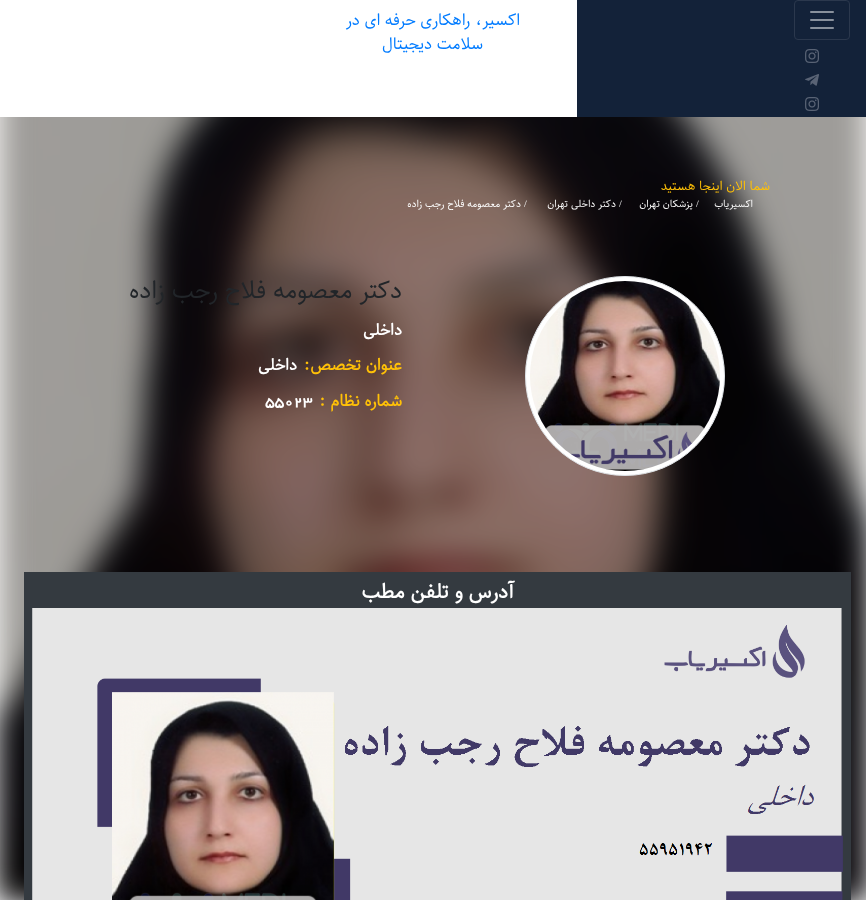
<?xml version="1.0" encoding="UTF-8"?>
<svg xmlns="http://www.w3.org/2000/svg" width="866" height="900">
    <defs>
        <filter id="blur1" x="-50%" y="-200%" width="200%" height="500%"><feGaussianBlur stdDeviation="15"/></filter>
    </defs>
    <rect width="100%" height="100%" fill="#FFFFFF"/>
    <image x="0" y="117" width="866" height="783" href="img_01.png"/>
    <rect x="0" y="0" width="866" height="900" fill="#000000" fill-opacity="0.36" filter="url(#blur1)"/>
    <rect x="0" y="0" width="577" height="117" fill="#FFFFFF"/>
    <rect x="577" y="0" width="289" height="117" fill="#132239"/>
    <rect x="794.5" y="0.5" width="55" height="39" rx="3.5" fill="none" stroke="#2B384D"/>
    <image x="810" y="11" width="24" height="18" href="img_02.png"/>
    <image x="805" y="49" width="14" height="14" href="img_03.png"/>
    <image x="805" y="74" width="14" height="12" href="img_04.png"/>
    <image x="805" y="97" width="14" height="14" href="img_03.png"/>
    <text x="520" y="25" font-family="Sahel" font-size="16" direction="rtl" fill="#007BFF">اکسیر، راهکاری حرفه ای در</text>
    <text x="483" y="49" font-family="Sahel" font-size="16" direction="rtl" fill="#007BFF">سلامت دیجیتال</text>
    <text x="770" y="190" font-family="Sahel" font-size="12.75" direction="rtl" fill="#FFC107">شما الان اینجا هستید</text>
    <text x="753" y="207" font-family="Sahel" font-size="10" direction="rtl" fill="#FFFFFF">اکسیریاب</text>
    <text x="696" y="207" font-family="Liberation Serif" font-size="10" fill="#FFFFFF">/</text>
    <text x="693" y="207" font-family="Sahel" font-size="10" direction="rtl" fill="#FFFFFF">پزشکان تهران</text>
    <text x="619" y="207" font-family="Liberation Serif" font-size="10" fill="#FFFFFF">/</text>
    <text x="616" y="207" font-family="Sahel" font-size="10" direction="rtl" fill="#FFFFFF">دکتر داخلی تهران</text>
    <text x="524" y="207" font-family="Liberation Serif" font-size="10" fill="#FFFFFF">/</text>
    <text x="521" y="207" font-family="Sahel" font-size="10" direction="rtl" fill="#FFFFFF">دکتر معصومه فلاح رجب زاده</text>
    <circle cx="625" cy="376" r="99.5" fill="#FFFFFF" stroke="#DEE2E6"/>
    <image x="530" y="281" width="190" height="190" href="img_05.png"/>
    <text x="402" y="298" font-family="Sahel" font-size="24" direction="rtl" fill="#212529">دکتر معصومه فلاح رجب زاده</text>
    <text x="402" y="335" font-family="Sahel" font-size="16" font-weight="700" direction="rtl" fill="#FFFFFF">داخلی</text>
    <text x="402" y="370" font-family="Sahel" font-size="16" font-weight="700" direction="rtl" fill="#FFC107">عنوان تخصص:</text>
    <text x="297" y="370" font-family="Sahel" font-size="16" font-weight="700" direction="rtl" fill="#FFFFFF">داخلی</text>
    <text x="402" y="406" font-family="Sahel" font-size="16" font-weight="700" direction="rtl" fill="#FFC107">شماره نظام :</text>
    <text x="265" y="406" font-family="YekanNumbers" font-size="16" font-weight="700" fill="#FFFFFF">55023</text>
    <rect x="24" y="572" width="827" height="328" fill="#343A40"/>
    <text x="514" y="598" font-family="Sahel" font-size="20" font-weight="700" direction="rtl" fill="#FFFFFF">آدرس و تلفن مطب</text>
    <image x="32" y="608" width="811" height="292" href="img_06.png"/>
</svg>
